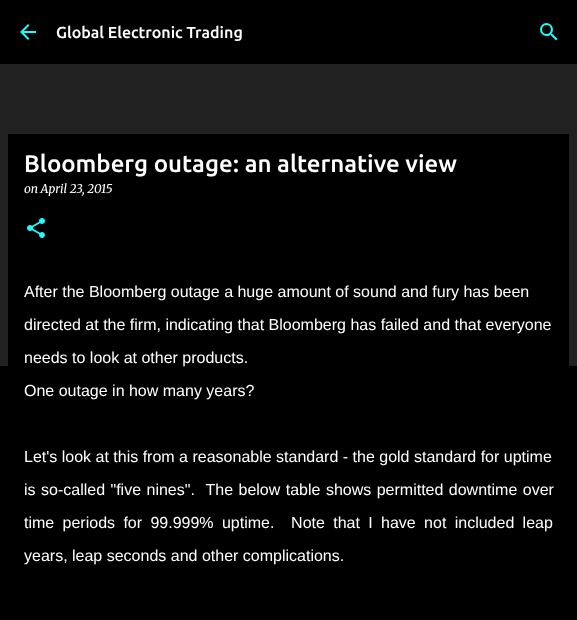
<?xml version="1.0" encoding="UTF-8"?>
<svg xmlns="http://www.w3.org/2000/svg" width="577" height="620">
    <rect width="100%" height="100%" fill="#212121"/>
    <rect x="0" y="0" width="577" height="64" fill="#000000"/>
    <image x="20" y="24" width="16" height="16" href="img_01.png"/>
    <text x="56" y="38" font-family="Ubuntu" font-size="16" font-weight="500" fill="#FFFFFF">Global Electronic Trading</text>
    <image x="540" y="23" width="18" height="18" href="img_02.png"/>
    <rect x="0" y="366" width="577" height="254" fill="#000000"/>
    <rect x="8" y="134" width="561" height="232" fill="#000000"/>
    <text x="24" y="172" font-family="Ubuntu" font-size="24" font-weight="500" fill="#FFFFFF">Bloomberg outage: an alternative view</text>
    <text x="24" y="193" font-family="Merriweather" font-size="12" font-style="italic" fill="#FFFFFF">on April 23, 2015</text>
    <image x="27" y="218" width="18" height="20" href="img_03.png"/>
    <text x="24" y="297" font-family="Liberation Sans" font-size="16" fill="#FFFFFF">After the Bloomberg outage a huge amount of sound and fury has been</text>
    <text x="24" y="330" font-family="Liberation Sans" font-size="16" fill="#FFFFFF">directed at the firm, indicating that Bloomberg has failed and that everyone</text>
    <text x="24" y="363" font-family="Liberation Sans" font-size="16" fill="#FFFFFF">needs to look at other products.</text>
    <text x="24" y="396" font-family="Liberation Sans" font-size="16" fill="#FFFFFF">One outage in how many years?</text>
    <text x="24" y="462" font-family="Liberation Sans" font-size="16" fill="#FFFFFF">Let's look at this from a reasonable standard - the gold standard for uptime</text>
    <text x="24" y="495" word-spacing="1" font-family="Liberation Sans" font-size="16" fill="#FFFFFF" xml:space="preserve">is so-called "five nines".  The below table shows permitted downtime over</text>
    <text x="24" y="528" word-spacing="3.9" font-family="Liberation Sans" font-size="16" fill="#FFFFFF" xml:space="preserve">time periods for 99.999% uptime.  Note that I have not included leap</text>
    <text x="24" y="561" font-family="Liberation Sans" font-size="16" fill="#FFFFFF">years, leap seconds and other complications.</text>
</svg>
